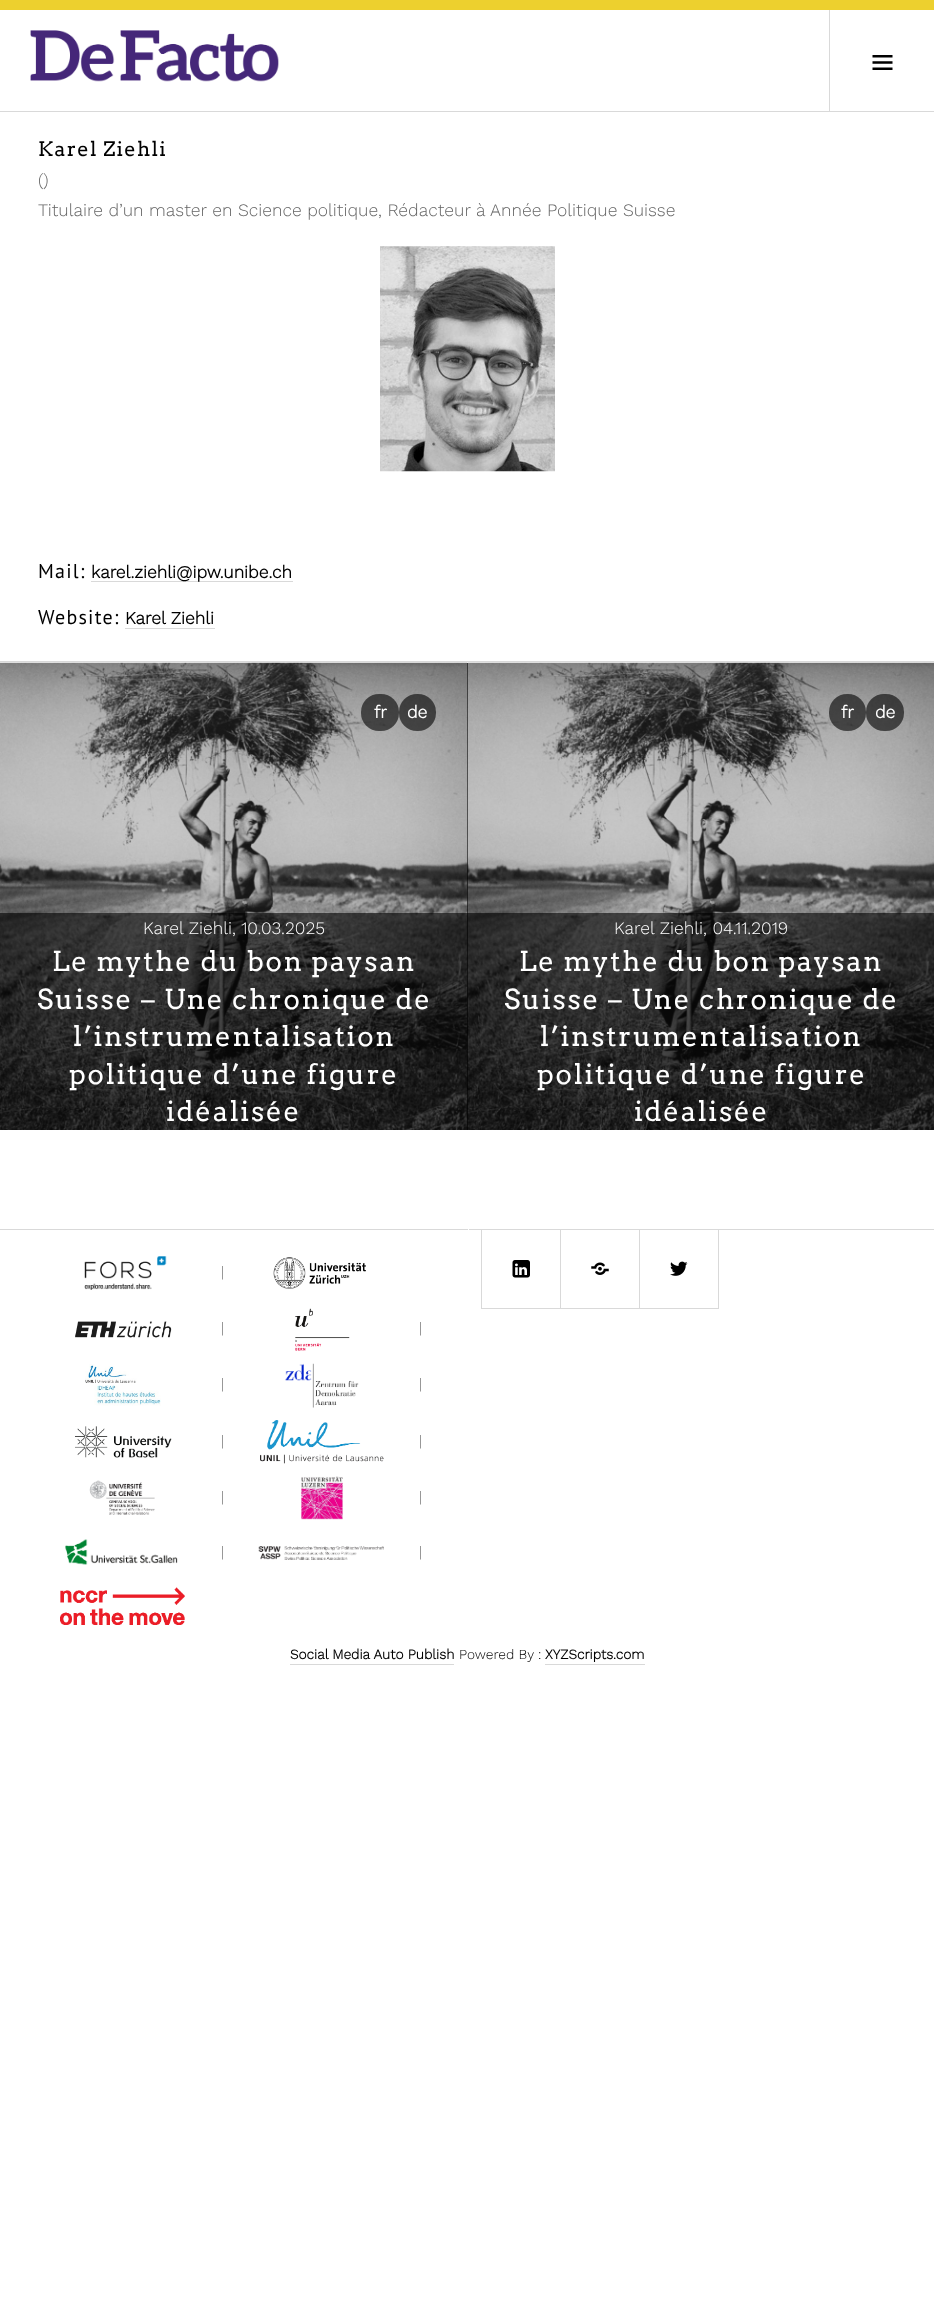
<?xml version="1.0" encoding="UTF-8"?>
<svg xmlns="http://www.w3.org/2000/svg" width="934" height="2324">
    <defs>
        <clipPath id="clip1"><rect x="0" y="1230" width="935" height="416"/></clipPath>
    </defs>
    <rect width="100%" height="100%" fill="#FFFFFF"/>
    <rect x="0" y="111" width="934" height="1" fill="#D9D9D9"/>
    <rect x="0" y="0" width="934" height="10" fill="#EDD02E"/>
    <image x="30" y="30" width="249" height="52" href="img_01.png"/>
    <rect x="829" y="10" width="1" height="101" fill="#D9D9D9"/>
    <image x="872" y="55" width="21" height="15" href="img_02.png"/>
    <rect x="0" y="661" width="934" height="1" fill="#D9D9D9"/>
    <text x="38" y="156" font-family="Arvo" font-size="20" letter-spacing="1.25" fill="#000000">Karel Ziehli</text>
    <text font-family="Work Sans" font-size="17.5" font-weight="300" fill="#666666">
        <tspan x="38" y="186">()</tspan>
        <tspan x="38" y="216">Titulaire d’un master en Science politique, Rédacteur à Année Politique Suisse</tspan>
    </text>
    <image x="380" y="246" width="175" height="226" href="img_03.png"/>
    <text x="38" y="578" font-family="PT Sans" font-size="20" letter-spacing="1.25" fill="#000000">Mail:</text>
    <rect x="91" y="581" width="202" height="1" fill="#D9D9D9"/>
    <text x="91" y="578" font-family="Work Sans" font-size="17.5" font-weight="700" fill="#000000">karel.ziehli@ipw.unibe.ch</text>
    <text x="38" y="624" font-family="PT Sans" font-size="20" letter-spacing="1.25" fill="#000000">Website:</text>
    <text x="125" y="624" font-family="Work Sans" font-size="17.5" font-weight="700" fill="#000000">Karel Ziehli</text>
    <rect x="125" y="628" width="90" height="1" fill="#D9D9D9"/>
    <rect x="467" y="663" width="1" height="467" fill="#000000"/>
    <image x="0" y="662" width="468" height="468" href="img_04.png"/>
    <rect x="361" y="694" width="38" height="37" rx="18" fill="#000000" fill-opacity="0.6"/>
    <text x="374" y="718" font-family="Work Sans" font-size="17.5" font-weight="700" fill="#FFFFFF">fr</text>
    <rect x="399" y="694" width="37" height="37" rx="18" fill="#000000" fill-opacity="0.6"/>
    <text x="407" y="718" font-family="Work Sans" font-size="17.5" font-weight="700" fill="#FFFFFF">de</text>
    <image x="467" y="662" width="467" height="468" href="img_05.png"/>
    <rect x="0" y="913" width="468" height="217" fill="#000000" fill-opacity="0.6"/>
    <text x="143" y="934" font-family="Work Sans" font-size="17.5" font-weight="300" fill="#FFFFFF">Karel Ziehli, 10.03.2025</text>
    <text x="52" y="971" font-family="Arvo" font-size="27.5" letter-spacing="1.75" fill="#FFFFFF">Le mythe du bon paysan</text>
    <text x="37" y="1009" font-family="Arvo" font-size="27.5" letter-spacing="1.75" fill="#FFFFFF">Suisse – Une chronique de</text>
    <text x="73" y="1046" font-family="Arvo" font-size="27.5" letter-spacing="1.75" fill="#FFFFFF">l’instrumentalisation</text>
    <text x="69" y="1084" font-family="Arvo" font-size="27.5" letter-spacing="1.75" fill="#FFFFFF">politique d’une figure</text>
    <text x="166" y="1121" font-family="Arvo" font-size="27.5" letter-spacing="1.75" fill="#FFFFFF">idéalisée</text>
    <rect x="829" y="694" width="37" height="37" rx="18" fill="#000000" fill-opacity="0.6"/>
    <text x="841" y="718" font-family="Work Sans" font-size="17.5" font-weight="700" fill="#FFFFFF">fr</text>
    <rect x="866" y="694" width="38" height="37" rx="18" fill="#000000" fill-opacity="0.6"/>
    <text x="875" y="718" font-family="Work Sans" font-size="17.5" font-weight="700" fill="#FFFFFF">de</text>
    <rect x="468" y="913" width="466" height="217" fill="#000000" fill-opacity="0.6"/>
    <text x="614" y="934" font-family="Work Sans" font-size="17.5" font-weight="300" fill="#FFFFFF">Karel Ziehli, 04.11.2019</text>
    <text x="519" y="971" font-family="Arvo" font-size="27.5" letter-spacing="1.75" fill="#FFFFFF">Le mythe du bon paysan</text>
    <text x="504" y="1009" font-family="Arvo" font-size="27.5" letter-spacing="1.75" fill="#FFFFFF">Suisse – Une chronique de</text>
    <text x="540" y="1046" font-family="Arvo" font-size="27.5" letter-spacing="1.75" fill="#FFFFFF">l’instrumentalisation</text>
    <text x="537" y="1084" font-family="Arvo" font-size="27.5" letter-spacing="1.75" fill="#FFFFFF">politique d’une figure</text>
    <text x="634" y="1121" font-family="Arvo" font-size="27.5" letter-spacing="1.75" fill="#FFFFFF">idéalisée</text>
    <rect x="0" y="1229" width="934" height="1" fill="#D9D9D9"/>
    <rect x="468" y="1229" width="1" height="1" fill="#FFFFFF"/>
    <image x="84" y="1256" width="83" height="34" href="img_06.png"/>
    <text x="221" y="1277" font-family="Work Sans" font-size="15" font-weight="300" fill="#666666">|</text>
    <image x="273" y="1257" width="93" height="32" href="img_07.png"/>
    <image x="75" y="1321" width="97" height="17" href="img_08.png"/>
    <text x="221" y="1333" font-family="Work Sans" font-size="15" font-weight="300" fill="#666666">|</text>
    <image x="295" y="1308" width="55" height="43" href="img_09.png"/>
    <text x="419" y="1333" font-family="Work Sans" font-size="15" font-weight="300" fill="#666666">|</text>
    <image x="85" y="1364" width="76" height="42" href="img_10.png"/>
    <text x="221" y="1389" font-family="Work Sans" font-size="15" font-weight="300" fill="#666666">|</text>
    <image x="285" y="1363" width="74" height="45" href="img_11.png"/>
    <text x="419" y="1389" font-family="Work Sans" font-size="15" font-weight="300" fill="#666666">|</text>
    <image x="75" y="1426" width="97" height="32" href="img_12.png"/>
    <text x="221" y="1446" font-family="Work Sans" font-size="15" font-weight="300" fill="#666666">|</text>
    <image x="260" y="1420" width="124" height="44" href="img_13.png"/>
    <text x="419" y="1446" font-family="Work Sans" font-size="15" font-weight="300" fill="#666666">|</text>
    <image x="89" y="1480" width="66" height="35" href="img_14.png"/>
    <text x="221" y="1502" font-family="Work Sans" font-size="15" font-weight="300" fill="#666666">|</text>
    <image x="301" y="1476" width="42" height="44" href="img_15.png"/>
    <text x="419" y="1502" font-family="Work Sans" font-size="15" font-weight="300" fill="#666666">|</text>
    <image x="65" y="1539" width="113" height="26" href="img_16.png"/>
    <text x="221" y="1557" font-family="Work Sans" font-size="15" font-weight="300" fill="#666666">|</text>
    <image x="258" y="1546" width="126" height="14" href="img_17.png"/>
    <text x="419" y="1557" font-family="Work Sans" font-size="15" font-weight="300" fill="#666666">|</text>
    <image x="60" y="1587" width="125" height="38" href="img_18.png"/>
    <g clip-path="url(#clip1)">
        <rect x="481.5" y="1229.5" width="79" height="79" fill="none" stroke="#D9D9D9"/>
    </g>
    <image x="512" y="1260" width="18" height="18" href="img_19.png"/>
    <g clip-path="url(#clip1)">
        <rect x="560.5" y="1229.5" width="79" height="79" fill="none" stroke="#D9D9D9"/>
    </g>
    <image x="591" y="1262" width="18" height="13" href="img_20.png"/>
    <g clip-path="url(#clip1)">
        <rect x="639.5" y="1229.5" width="79" height="79" fill="none" stroke="#D9D9D9"/>
    </g>
    <image x="670" y="1261" width="18" height="15" href="img_21.png"/>
    <text x="290" y="1659" font-family="Work Sans" font-size="13.75" font-weight="700" fill="#000000">Social Media Auto Publish</text>
    <rect x="290" y="1664" width="164" height="1" fill="#D9D9D9"/>
    <text x="459" y="1659" font-family="Work Sans" font-size="13.75" font-weight="300" fill="#000000">Powered By :</text>
    <text x="545" y="1659" font-family="Work Sans" font-size="13.75" font-weight="700" fill="#000000">XYZScripts.com</text>
    <rect x="545" y="1664" width="100" height="1" fill="#D9D9D9"/>
</svg>
